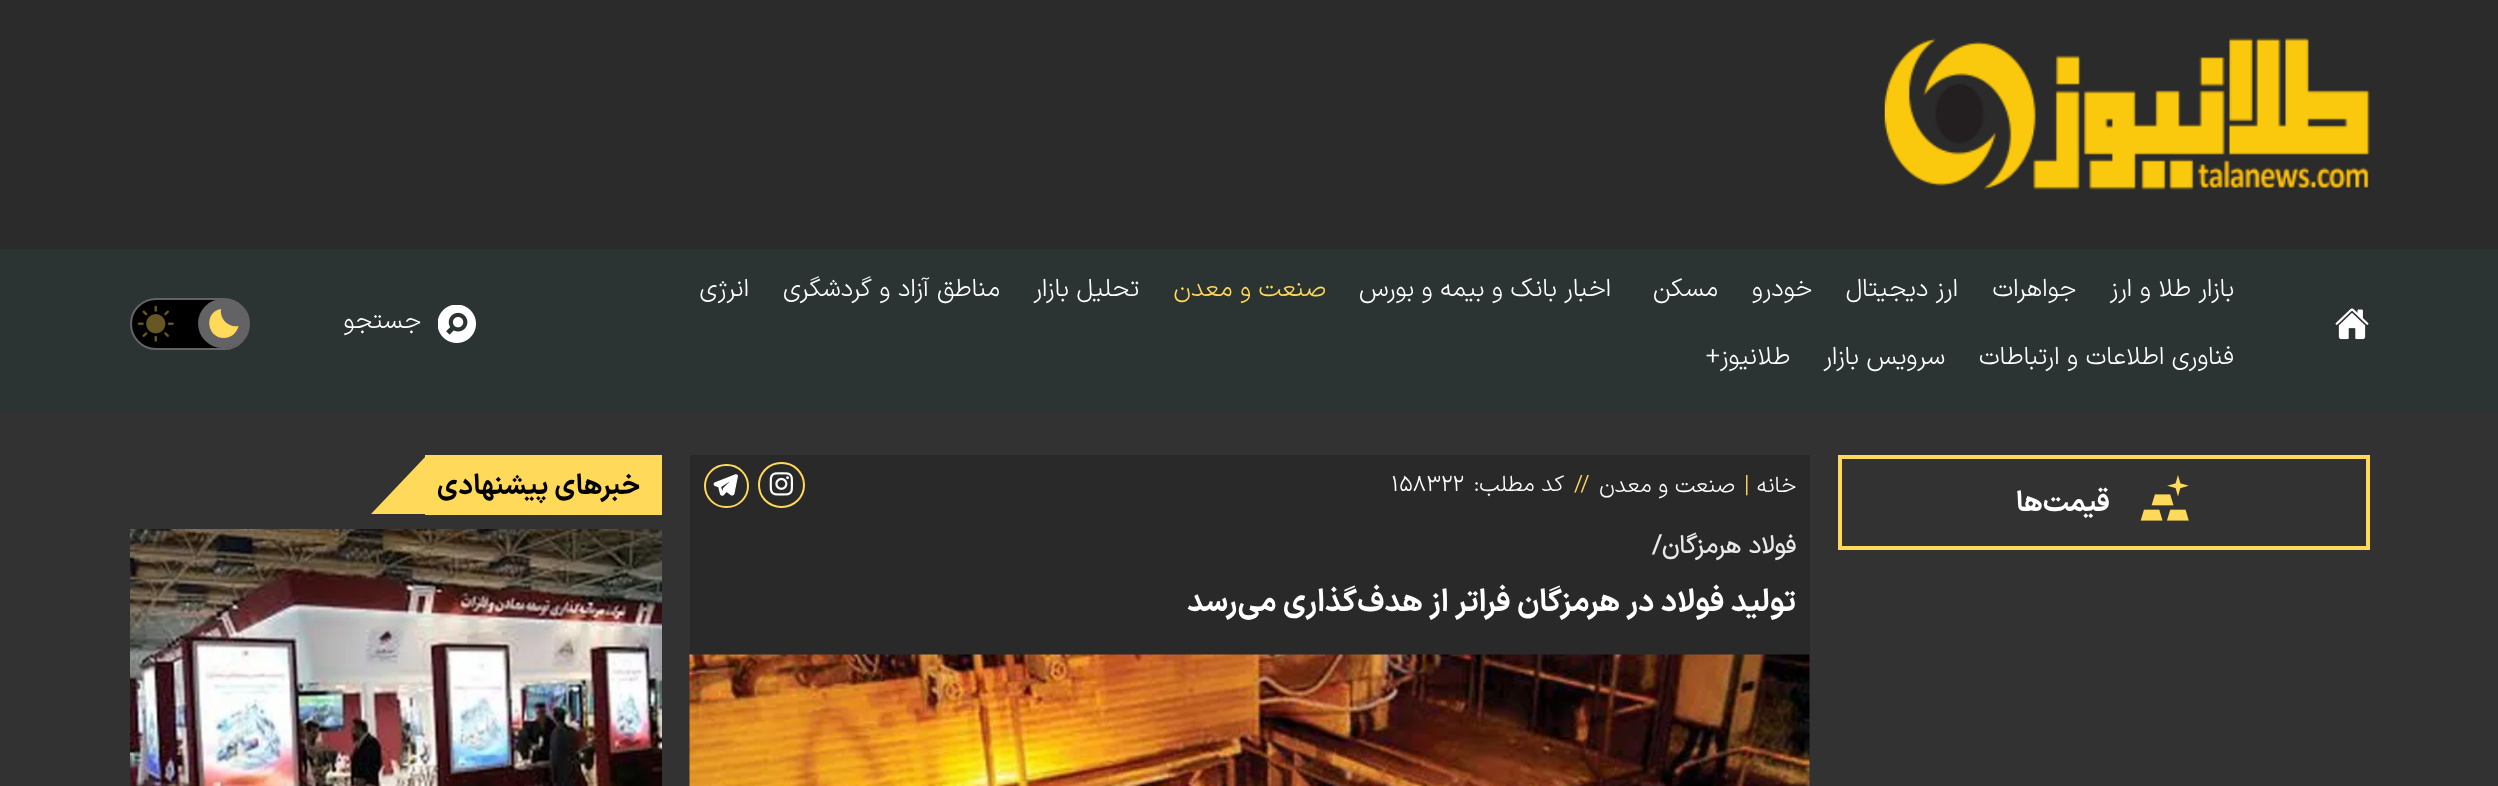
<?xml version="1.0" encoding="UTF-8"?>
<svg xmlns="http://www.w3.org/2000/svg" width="2498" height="786">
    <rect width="100%" height="100%" fill="#323232"/>
    <rect x="0" y="249" width="2498" height="164" fill="#2C3333"/>
    <rect x="0" y="0" width="2498" height="249" fill="#2B2B2B"/>
    <image x="1884" y="38" width="486" height="152" href="img_01.png"/>
    <image x="2335" y="308" width="34" height="32" href="img_02.png"/>
    <text x="2234" y="296" font-family="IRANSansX" font-size="25.25" font-weight="300" direction="rtl" fill="#FFFFFF">بازار طلا و ارز</text>
    <text x="2076" y="296" font-family="IRANSansX" font-size="25.25" font-weight="300" direction="rtl" fill="#FFFFFF">جواهرات</text>
    <text x="1958" y="296" font-family="IRANSansX" font-size="25.25" font-weight="300" direction="rtl" fill="#FFFFFF">ارز دیجیتال</text>
    <text x="1812" y="296" font-family="IRANSansX" font-size="25.25" font-weight="300" direction="rtl" fill="#FFFFFF">خودرو</text>
    <text x="1718" y="296" font-family="IRANSansX" font-size="25.25" font-weight="300" direction="rtl" fill="#FFFFFF">مسکن</text>
    <text x="1611" y="296" font-family="IRANSansX" font-size="25.25" font-weight="300" direction="rtl" fill="#FFFFFF">اخبار بانک و بیمه و بورس</text>
    <text x="1326" y="296" font-family="IRANSansX" font-size="25.25" font-weight="300" direction="rtl" fill="#FFD95A">صنعت و معدن</text>
    <text x="1139" y="296" font-family="IRANSansX" font-size="25.25" font-weight="300" direction="rtl" fill="#FFFFFF">تحلیل بازار</text>
    <text x="1000" y="296" font-family="IRANSansX" font-size="25.25" font-weight="300" direction="rtl" fill="#FFFFFF">مناطق آزاد و گردشگری</text>
    <text x="749" y="296" font-family="IRANSansX" font-size="25.25" font-weight="300" direction="rtl" fill="#FFFFFF">انرژی</text>
    <text x="2234" y="364" font-family="IRANSansX" font-size="25.25" font-weight="300" direction="rtl" fill="#FFFFFF">فناوری اطلاعات و ارتباطات</text>
    <text x="1945" y="364" font-family="IRANSansX" font-size="25.25" font-weight="300" direction="rtl" fill="#FFFFFF">سرویس بازار</text>
    <text x="1790" y="364" font-family="IRANSansX" font-size="25.25" font-weight="300" direction="rtl" fill="#FFFFFF">طلانیوز+</text>
    <image x="438" y="305" width="38" height="38" href="img_03.png"/>
    <text x="421" y="328" font-family="IRANSansX" font-size="25.25" font-weight="300" direction="rtl" fill="#FFFFFF">جستجو</text>
    <rect x="131" y="299" width="118" height="50" rx="25" fill="#000000" stroke="#636366" stroke-width="2"/>
    <rect x="198" y="299" width="51" height="49" rx="24.5" fill="#636366"/>
    <path d="M 224 338 C 206.5 338 203.5 312 221 309 C 219.5 319 228.5 328 238.5 326 C 237 333 231 338 224 338 Z" fill="#FFD95A"/>
    <image x="137" y="305" width="37" height="37" href="img_04.png"/>
    <rect x="1840" y="457" width="528" height="91" fill="none" stroke="#FFD95A" stroke-width="4"/>
    <image x="2140" y="475" width="49" height="46" href="img_05.png"/>
    <text x="2110" y="511" font-family="'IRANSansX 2'" font-size="28" font-weight="700" direction="rtl" fill="#FFFFFF">قیمت‌ها</text>
    <rect x="690" y="455" width="1120" height="200" fill="#292929"/>
    <text x="1796" y="492" font-family="IRANSansX" font-size="22.5" font-weight="300" direction="rtl" fill="#FFFFFF">خانه</text>
    <text x="1744" y="492" font-family="IRANSansX" font-size="24" font-weight="300" fill="#FFD95A">|</text>
    <text x="1735" y="492" font-family="IRANSansX" font-size="22.5" font-weight="300" direction="rtl" fill="#FFFFFF">صنعت و معدن</text>
    <text x="1574" y="491" font-family="IRANSansX" font-size="22.5" font-weight="300" fill="#FFD95A">//</text>
    <text x="1564" y="491" font-family="IRANSansX" font-size="22.5" font-weight="300" direction="rtl" fill="#FFFFFF">کد مطلب:</text>
    <text x="1391" y="491" font-family="IRANSansX" font-size="22.5" font-weight="300" fill="#FFFFFF">۱۵۸۳۲۲</text>
    <rect x="759" y="463" width="45" height="44" rx="22" fill="none" stroke="#FFD95A" stroke-width="2"/>
    <image x="769" y="472" width="25" height="24" href="img_06.png"/>
    <rect x="705" y="465" width="43" height="42" rx="21" fill="none" stroke="#FFD95A" stroke-width="2"/>
    <image x="713" y="474" width="25" height="22" href="img_07.png"/>
    <text x="1796" y="553" font-family="IRANSansX" font-size="25.25" font-weight="700" direction="rtl" fill="#EAEAEA">فولاد هرمزگان/</text>
    <text x="1796" y="611" font-family="'IRANSansX 2'" font-size="30.75" font-weight="700" direction="rtl" fill="#FFFFFF">تولید فولاد در هرمزگان فراتر از هدف‌گذاری می‌رسد</text>
    <image x="689" y="654" width="1121" height="132" href="img_08.png"/>
    <rect x="425" y="455" width="237" height="60" fill="#FFD95A"/>
    <text x="640" y="494" font-family="'IRANSansX 2'" font-size="28" font-weight="700" direction="rtl" fill="#000000">خبرهای پیشنهادی</text>
    <path d="M 427 514 H 371 L 427 455 Z" fill="#FFD95A"/>
    <image x="130" y="529" width="532" height="257" href="img_09.png"/>
</svg>
